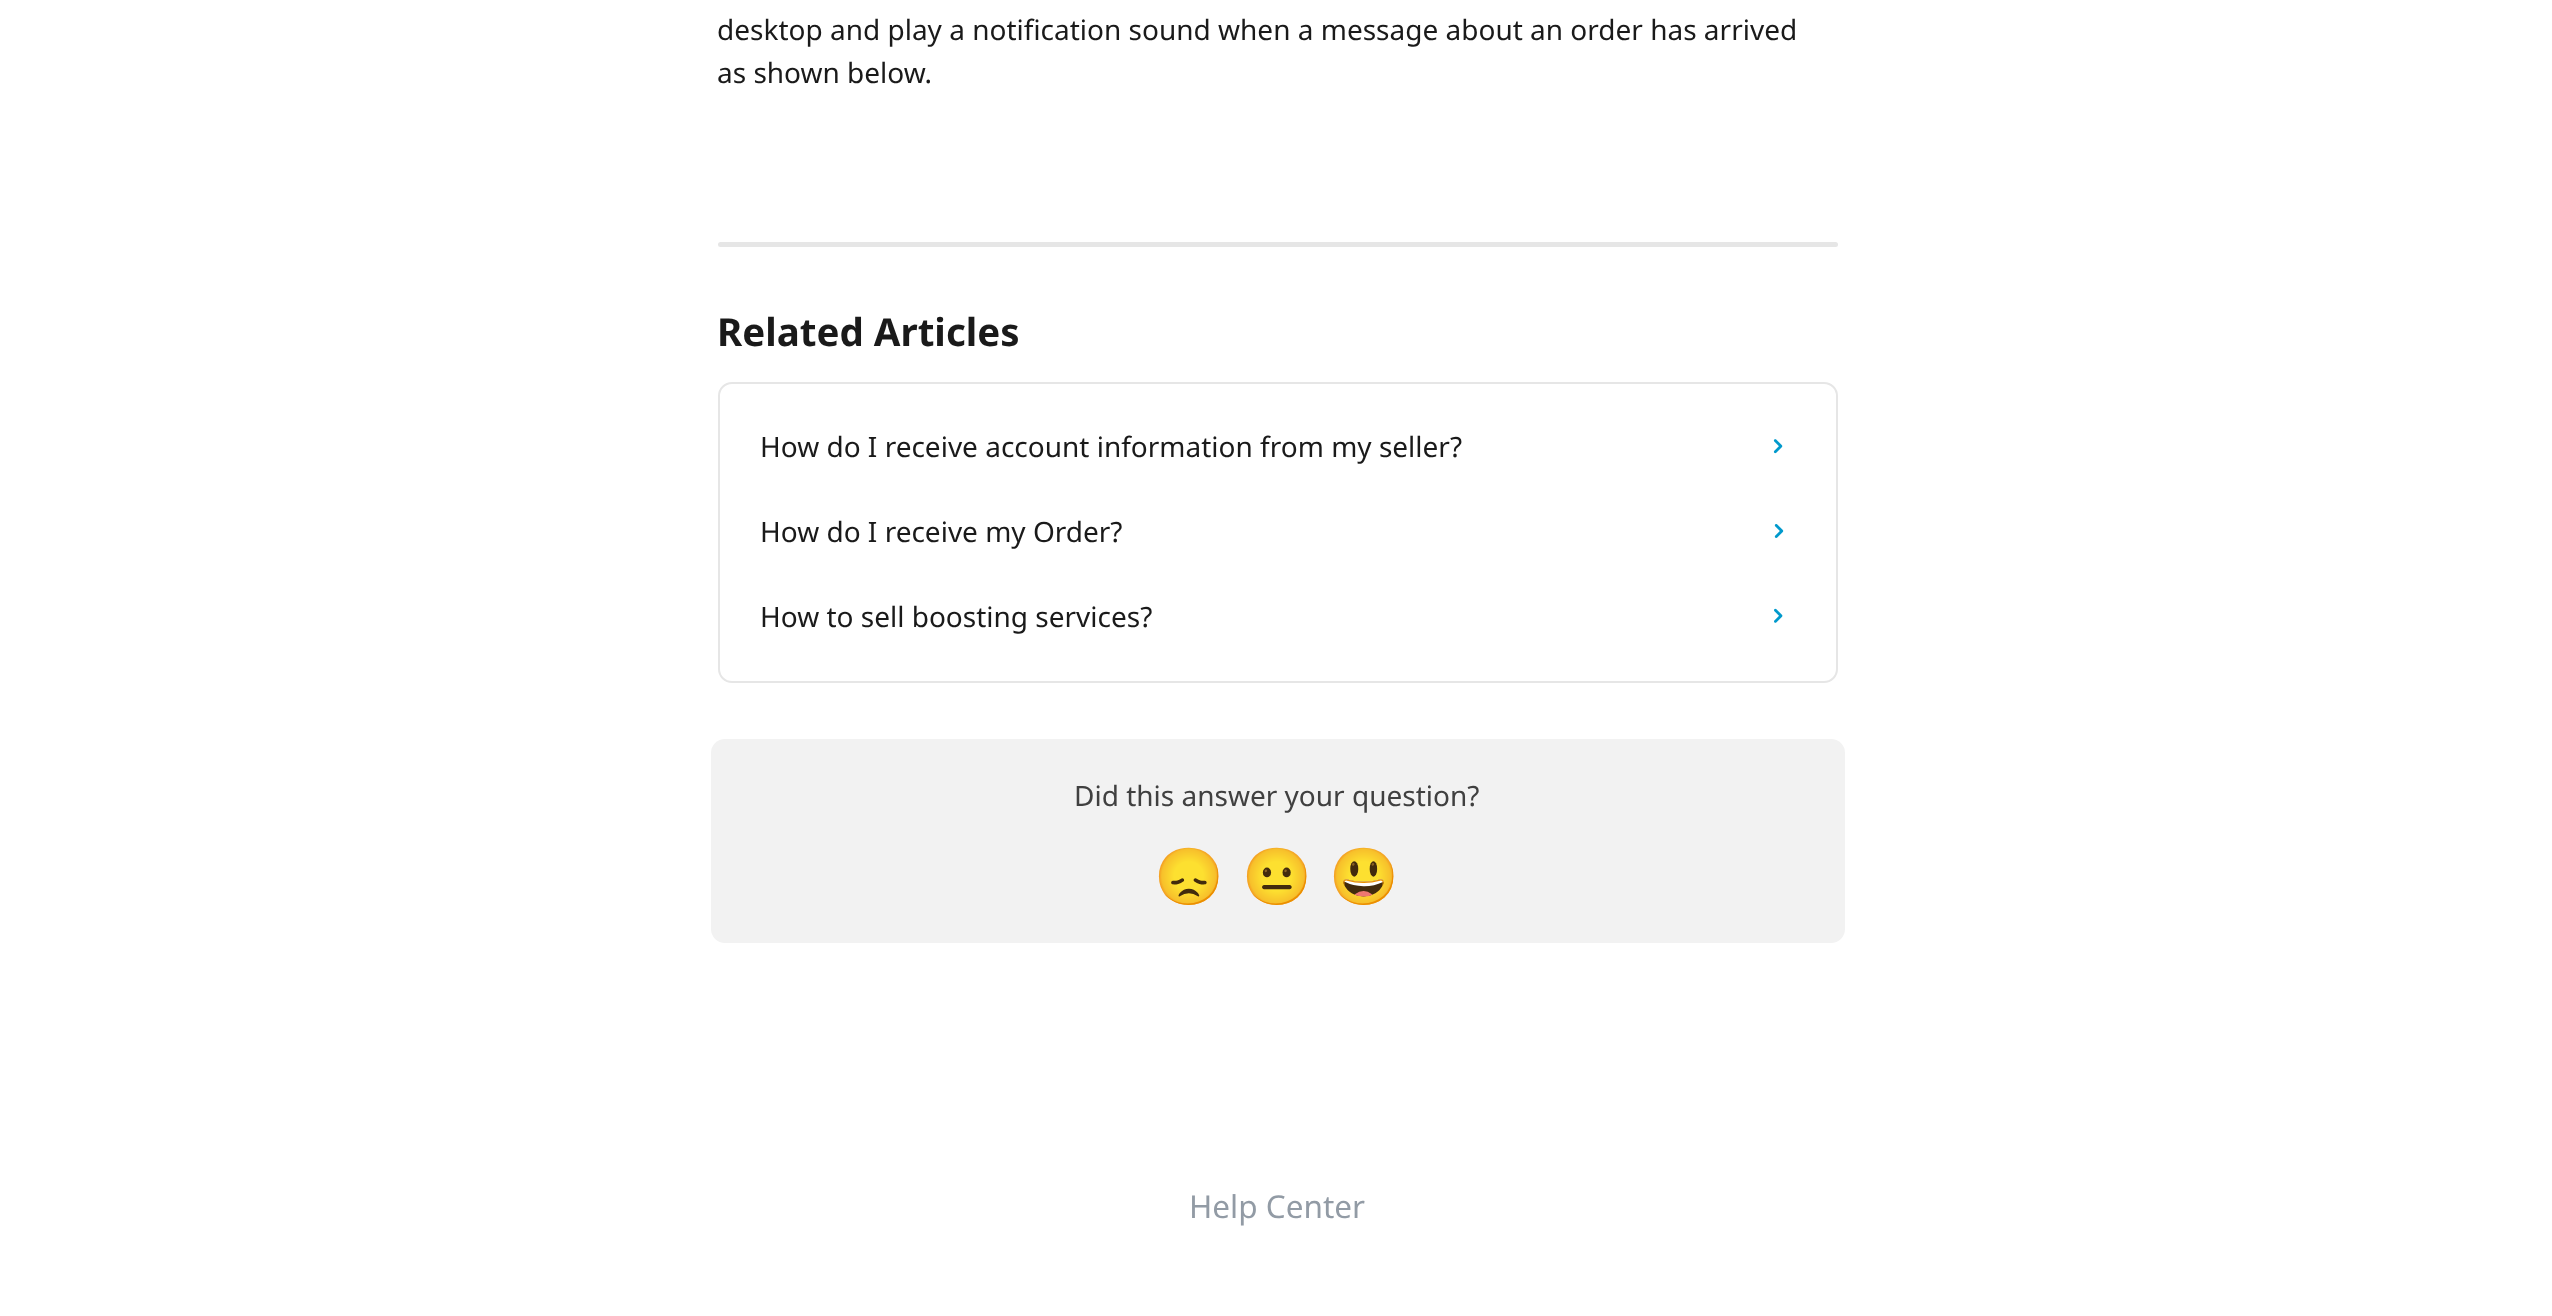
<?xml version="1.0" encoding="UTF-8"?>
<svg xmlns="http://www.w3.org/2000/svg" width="2552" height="1316">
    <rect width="100%" height="100%" fill="#FFFFFF"/>
    <text font-family="Noto Sans" font-size="28" fill="#1A1A1A">
        <tspan x="717" y="40">desktop and play a notification sound when a message about an order has arrived</tspan>
        <tspan x="717" y="83">as shown below.</tspan>
    </text>
    <rect x="718" y="242" width="1120" height="5" rx="2.5" fill="#E6E6E6"/>
    <text x="717" y="346" font-family="Noto Sans" font-size="38.5" font-weight="700" fill="#1A1A1A">Related Articles</text>
    <rect x="719" y="383" width="1118" height="299" rx="13" fill="none" stroke="#E6E6E6" stroke-width="2"/>
    <text x="760" y="457" font-family="Noto Sans" font-size="28" fill="#1A1A1A">How do I receive account information from my seller?</text>
    <image x="1773" y="439" width="10" height="15" href="img_01.png"/>
    <text x="760" y="542" font-family="Noto Sans" font-size="28" fill="#1A1A1A">How do I receive my Order?</text>
    <image x="1774" y="524" width="10" height="14" href="img_02.png"/>
    <text x="760" y="627" font-family="Noto Sans" font-size="28" fill="#1A1A1A">How to sell boosting services?</text>
    <image x="1774" y="608" width="9" height="15" href="img_03.png"/>
    <rect x="711" y="739" width="1134" height="204" rx="14" fill="#F2F2F2"/>
    <text x="1074" y="806" font-family="Noto Sans" font-size="28" fill="#404040">Did this answer your question?</text>
    <text x="1154" y="896" font-family="Noto Color Emoji" font-size="56" fill="#404040">😞</text>
    <text x="1242" y="896" font-family="Noto Color Emoji" font-size="56" fill="#404040">😐</text>
    <text x="1329" y="896" font-family="Noto Color Emoji" font-size="56" fill="#404040">😃</text>
    <text x="1189" y="1218" font-family="Noto Sans" font-size="31.5" fill="#929BA5">Help Center</text>
</svg>
